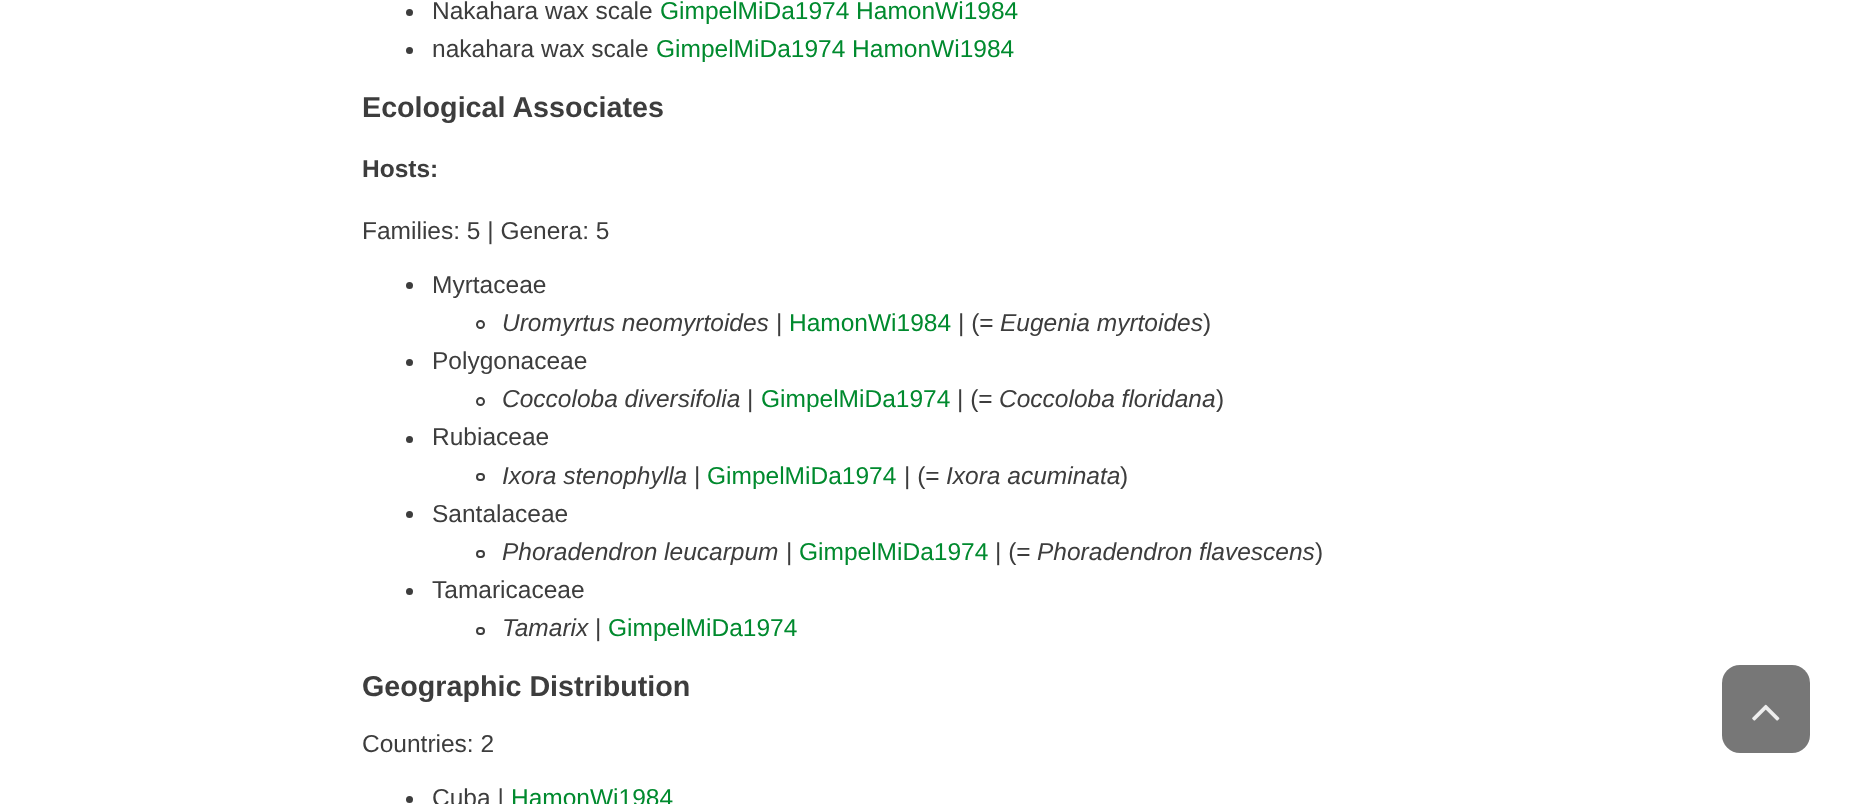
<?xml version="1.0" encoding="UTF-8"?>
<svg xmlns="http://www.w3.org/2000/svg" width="1862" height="804">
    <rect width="100%" height="100%" fill="#FFFFFF"/>
    <circle cx="409.5" cy="12.5" r="3.5" fill="#3D3D3D"/>
    <text x="432" y="19" font-family="Liberation Sans" font-size="24.5" fill="#3D3D3D">Nakahara wax scale</text>
    <text x="660" y="19" font-family="Liberation Sans" font-size="24.5" fill="#008A2E">GimpelMiDa1974 HamonWi1984</text>
    <circle cx="409.5" cy="50.5" r="3.5" fill="#3D3D3D"/>
    <text x="432" y="57" font-family="Liberation Sans" font-size="24.5" fill="#3D3D3D">nakahara wax scale</text>
    <text x="656" y="57" font-family="Liberation Sans" font-size="24.5" fill="#008A2E">GimpelMiDa1974 HamonWi1984</text>
    <text x="362" y="117" font-family="Liberation Sans" font-size="28.7" font-weight="700" fill="#3D3D3D">Ecological Associates</text>
    <text x="362" y="177" font-family="Liberation Sans" font-size="24.5" font-weight="700" fill="#3D3D3D">Hosts:</text>
    <text x="362" y="239" font-family="Liberation Sans" font-size="24.5" fill="#3D3D3D">Families: 5 | Genera: 5</text>
    <circle cx="409.5" cy="285.5" r="3.5" fill="#3D3D3D"/>
    <text x="432" y="293" font-family="Liberation Sans" font-size="24.5" fill="#3D3D3D">Myrtaceae</text>
    <circle cx="480.5" cy="324.5" r="3.5" fill="none" stroke="#3D3D3D" stroke-width="2"/>
    <text x="502" y="331" font-family="Liberation Sans" font-size="24.5" font-style="italic" fill="#3D3D3D">Uromyrtus neomyrtoides</text>
    <text x="776" y="331" font-family="Liberation Sans" font-size="24.5" fill="#3D3D3D">|</text>
    <text x="789" y="331" font-family="Liberation Sans" font-size="24.5" fill="#008A2E">HamonWi1984</text>
    <text x="958" y="331" font-family="Liberation Sans" font-size="24.5" fill="#3D3D3D">| (=</text>
    <text x="1000" y="331" font-family="Liberation Sans" font-size="24.5" font-style="italic" fill="#3D3D3D">Eugenia myrtoides</text>
    <text x="1203" y="331" font-family="Liberation Sans" font-size="24.5" fill="#3D3D3D">)</text>
    <circle cx="409.5" cy="362.5" r="3.5" fill="#3D3D3D"/>
    <text x="432" y="369" font-family="Liberation Sans" font-size="24.5" fill="#3D3D3D">Polygonaceae</text>
    <circle cx="480.5" cy="401.5" r="3.5" fill="none" stroke="#3D3D3D" stroke-width="2"/>
    <text x="502" y="407" font-family="Liberation Sans" font-size="24.5" font-style="italic" fill="#3D3D3D">Coccoloba diversifolia</text>
    <text x="747" y="407" font-family="Liberation Sans" font-size="24.5" fill="#3D3D3D">|</text>
    <text x="761" y="407" font-family="Liberation Sans" font-size="24.5" fill="#008A2E">GimpelMiDa1974</text>
    <text x="957" y="407" font-family="Liberation Sans" font-size="24.5" fill="#3D3D3D">| (=</text>
    <text x="999" y="407" font-family="Liberation Sans" font-size="24.5" font-style="italic" fill="#3D3D3D">Coccoloba floridana</text>
    <text x="1216" y="407" font-family="Liberation Sans" font-size="24.5" fill="#3D3D3D">)</text>
    <circle cx="409.5" cy="439.5" r="3.5" fill="#3D3D3D"/>
    <text x="432" y="445" font-family="Liberation Sans" font-size="24.5" fill="#3D3D3D">Rubiaceae</text>
    <rect x="477" y="474" width="7" height="6" rx="3" fill="none" stroke="#3D3D3D" stroke-width="2"/>
    <text x="502" y="484" font-family="Liberation Sans" font-size="24.5" font-style="italic" fill="#3D3D3D">Ixora stenophylla</text>
    <text x="694" y="484" font-family="Liberation Sans" font-size="24.5" fill="#3D3D3D">|</text>
    <text x="707" y="484" font-family="Liberation Sans" font-size="24.5" fill="#008A2E">GimpelMiDa1974</text>
    <text x="904" y="484" font-family="Liberation Sans" font-size="24.5" fill="#3D3D3D">| (=</text>
    <text x="946" y="484" font-family="Liberation Sans" font-size="24.5" font-style="italic" fill="#3D3D3D">Ixora acuminata</text>
    <text x="1120" y="484" font-family="Liberation Sans" font-size="24.5" fill="#3D3D3D">)</text>
    <circle cx="409.5" cy="514.5" r="3.5" fill="#3D3D3D"/>
    <text x="432" y="522" font-family="Liberation Sans" font-size="24.5" fill="#3D3D3D">Santalaceae</text>
    <rect x="477" y="551" width="7" height="6" rx="3" fill="none" stroke="#3D3D3D" stroke-width="2"/>
    <text x="502" y="560" font-family="Liberation Sans" font-size="24.5" font-style="italic" fill="#3D3D3D">Phoradendron leucarpum</text>
    <text x="786" y="560" font-family="Liberation Sans" font-size="24.5" fill="#3D3D3D">|</text>
    <text x="799" y="560" font-family="Liberation Sans" font-size="24.5" fill="#008A2E">GimpelMiDa1974</text>
    <text x="995" y="560" font-family="Liberation Sans" font-size="24.5" fill="#3D3D3D">| (=</text>
    <text x="1037" y="560" font-family="Liberation Sans" font-size="24.5" font-style="italic" fill="#3D3D3D">Phoradendron flavescens</text>
    <text x="1315" y="560" font-family="Liberation Sans" font-size="24.5" fill="#3D3D3D">)</text>
    <circle cx="409.5" cy="591.5" r="3.5" fill="#3D3D3D"/>
    <text x="432" y="598" font-family="Liberation Sans" font-size="24.5" fill="#3D3D3D">Tamaricaceae</text>
    <rect x="477" y="628" width="7" height="6" rx="3" fill="none" stroke="#3D3D3D" stroke-width="2"/>
    <text x="502" y="636" font-family="Liberation Sans" font-size="24.5" font-style="italic" fill="#3D3D3D">Tamarix</text>
    <text x="595" y="636" font-family="Liberation Sans" font-size="24.5" fill="#3D3D3D">|</text>
    <text x="608" y="636" font-family="Liberation Sans" font-size="24.5" fill="#008A2E">GimpelMiDa1974</text>
    <text x="362" y="696" font-family="Liberation Sans" font-size="28.7" font-weight="700" fill="#3D3D3D">Geographic Distribution</text>
    <rect x="1722" y="665" width="88" height="88" rx="18" fill="#777777"/>
    <image x="1752" y="704" width="28" height="17" href="img_01.png"/>
    <text x="362" y="752" font-family="Liberation Sans" font-size="24.5" fill="#3D3D3D">Countries: 2</text>
    <circle cx="409.5" cy="799.5" r="3.5" fill="#3D3D3D"/>
    <text x="432" y="806" font-family="Liberation Sans" font-size="24.5" fill="#3D3D3D">Cuba |</text>
    <text x="511" y="806" font-family="Liberation Sans" font-size="24.5" fill="#008A2E">HamonWi1984</text>
</svg>
